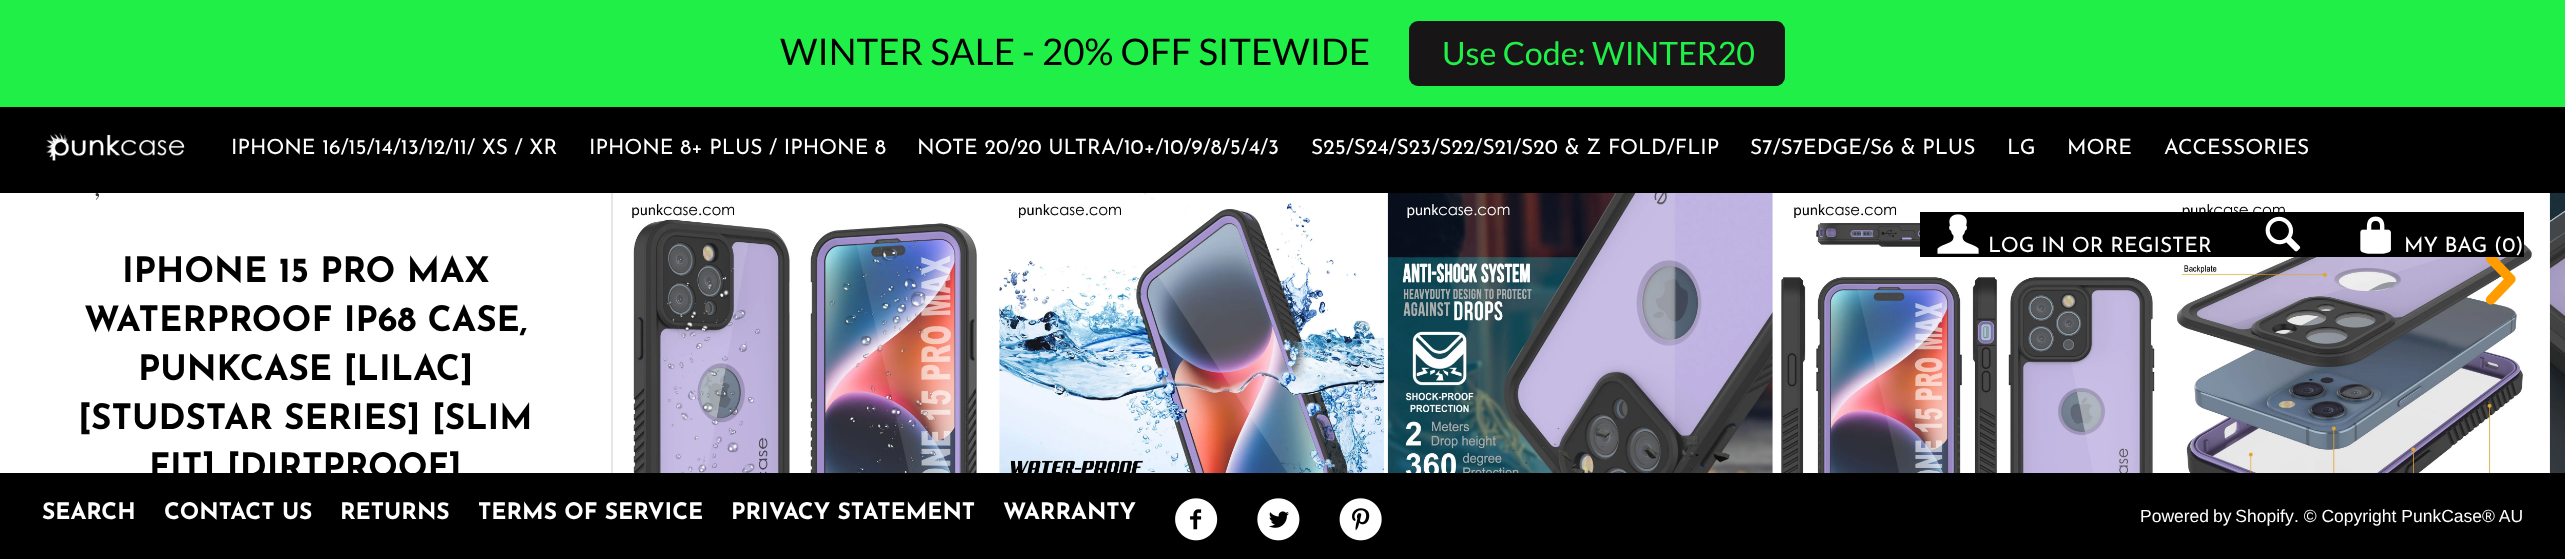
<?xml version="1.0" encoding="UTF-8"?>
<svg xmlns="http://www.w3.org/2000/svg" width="2565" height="559">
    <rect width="100%" height="100%" fill="#FFFFFF"/>
    <rect x="0" y="0" width="2565" height="107" fill="#20EF48"/>
    <text x="780" y="65" font-family="Lato" font-size="36.75" fill="#000000">WINTER SALE - 20% OFF SITEWIDE</text>
    <rect x="1409" y="21" width="376" height="65" rx="9" fill="#171515"/>
    <text x="1442" y="65" font-family="Lato" font-size="32.25" fill="#20EF48">Use Code: WINTER20</text>
    <rect x="0" y="107" width="2565" height="86" fill="#000000"/>
    <image x="46" y="132" width="139" height="29" href="img_01.png"/>
    <text x="231" y="154" font-family="Josefin Sans" font-size="21" fill="#FFFFFF">IPHONE 16/15/14/13/12/11/ XS / XR</text>
    <text x="589" y="154" font-family="Josefin Sans" font-size="21" fill="#FFFFFF">IPHONE 8+ PLUS / IPHONE 8</text>
    <text x="917" y="154" font-family="Josefin Sans" font-size="21" fill="#FFFFFF">NOTE 20/20 ULTRA/10+/10/9/8/5/4/3</text>
    <text x="1311" y="154" font-family="Josefin Sans" font-size="21" fill="#FFFFFF">S25/S24/S23/S22/S21/S20 &amp; Z FOLD/FLIP</text>
    <text x="1750" y="154" font-family="Josefin Sans" font-size="21" fill="#FFFFFF">S7/S7EDGE/S6 &amp; PLUS</text>
    <text x="2007" y="154" font-family="Josefin Sans" font-size="21" fill="#FFFFFF">LG</text>
    <text x="2067" y="154" font-family="Josefin Sans" font-size="21" fill="#FFFFFF">MORE</text>
    <text x="2164" y="154" font-family="Josefin Sans" font-size="21" fill="#FFFFFF">ACCESSORIES</text>
    <image x="1781" y="204" width="374" height="269" href="img_08.png"/>
    <image x="2176" y="204" width="357" height="269" href="img_09.png"/>
    <rect x="1920" y="212" width="604" height="45" fill="#000000"/>
    <image x="1937" y="214" width="42" height="40" href="img_02.png"/>
    <text x="1988" y="252" font-family="Josefin Sans" font-size="21" fill="#FFFFFF">LOG IN OR REGISTER</text>
    <image x="2265" y="216" width="36" height="36" href="img_03.png"/>
    <image x="2360" y="216" width="31" height="38" href="img_04.png"/>
    <text x="2404" y="252" font-family="Josefin Sans" font-size="21" fill="#FFFFFF">MY BAG (0</text>
    <text x="2515" y="252" font-family="Josefin Sans" font-size="21" fill="#FFFFFF">)</text>
    <rect x="611" y="193" width="2" height="280" fill="#E6E6E6"/>
    <text x="94" y="196" font-family="Cardo" font-size="26" fill="#333333">,</text>
    <text x="122" y="282" font-family="Josefin Sans" font-size="35" font-weight="700" fill="#000000">IPHONE 15 PRO MAX</text>
    <text x="84" y="331" font-family="Josefin Sans" font-size="35" font-weight="700" fill="#000000">WATERPROOF IP68 CASE,</text>
    <text x="138" y="380" font-family="Josefin Sans" font-size="35" font-weight="700" fill="#000000">PUNKCASE [LILAC]</text>
    <text x="78" y="429" font-family="Josefin Sans" font-size="35" font-weight="700" fill="#000000">[STUDSTAR SERIES] [SLIM</text>
    <text x="149" y="478" font-family="Josefin Sans" font-size="35" font-weight="700" fill="#000000">FIT] [DIRTPROOF]</text>
    <image x="632" y="204" width="345" height="269" href="img_05.png"/>
    <image x="999" y="193" width="386" height="280" href="img_06.png"/>
    <image x="1387" y="193" width="386" height="280" href="img_07.png"/>
    <image x="2549" y="193" width="16" height="280" href="img_10.png"/>
    <image x="2485" y="257" width="31" height="48" href="img_11.png"/>
    <rect x="0" y="473" width="2565" height="86" fill="#000000"/>
    <text x="42" y="519" font-family="Josefin Sans" font-size="22.75" font-weight="700" fill="#FFFFFF">SEARCH</text>
    <text x="164" y="519" font-family="Josefin Sans" font-size="22.75" font-weight="700" fill="#FFFFFF">CONTACT US</text>
    <text x="340" y="519" font-family="Josefin Sans" font-size="22.75" font-weight="700" fill="#FFFFFF">RETURNS</text>
    <text x="478" y="519" font-family="Josefin Sans" font-size="22.75" font-weight="700" fill="#FFFFFF">TERMS OF SERVICE</text>
    <text x="731" y="519" font-family="Josefin Sans" font-size="22.75" font-weight="700" fill="#FFFFFF">PRIVACY STATEMENT</text>
    <text x="1003" y="519" font-family="Josefin Sans" font-size="22.75" font-weight="700" fill="#FFFFFF">WARRANTY</text>
    <image x="1175" y="498" width="43" height="43" href="img_12.png"/>
    <image x="1257" y="498" width="43" height="43" href="img_13.png"/>
    <image x="1339" y="498" width="43" height="43" href="img_14.png"/>
    <text x="2140" y="522" word-spacing="-1" font-family="Liberation Sans" font-size="17.5" fill="#FFFFFF">Powered by Shopify</text>
    <text x="2294" y="522" font-family="Liberation Sans" font-size="17.5" fill="#FFFFFF">. © Copyright PunkCase® AU</text>
</svg>
